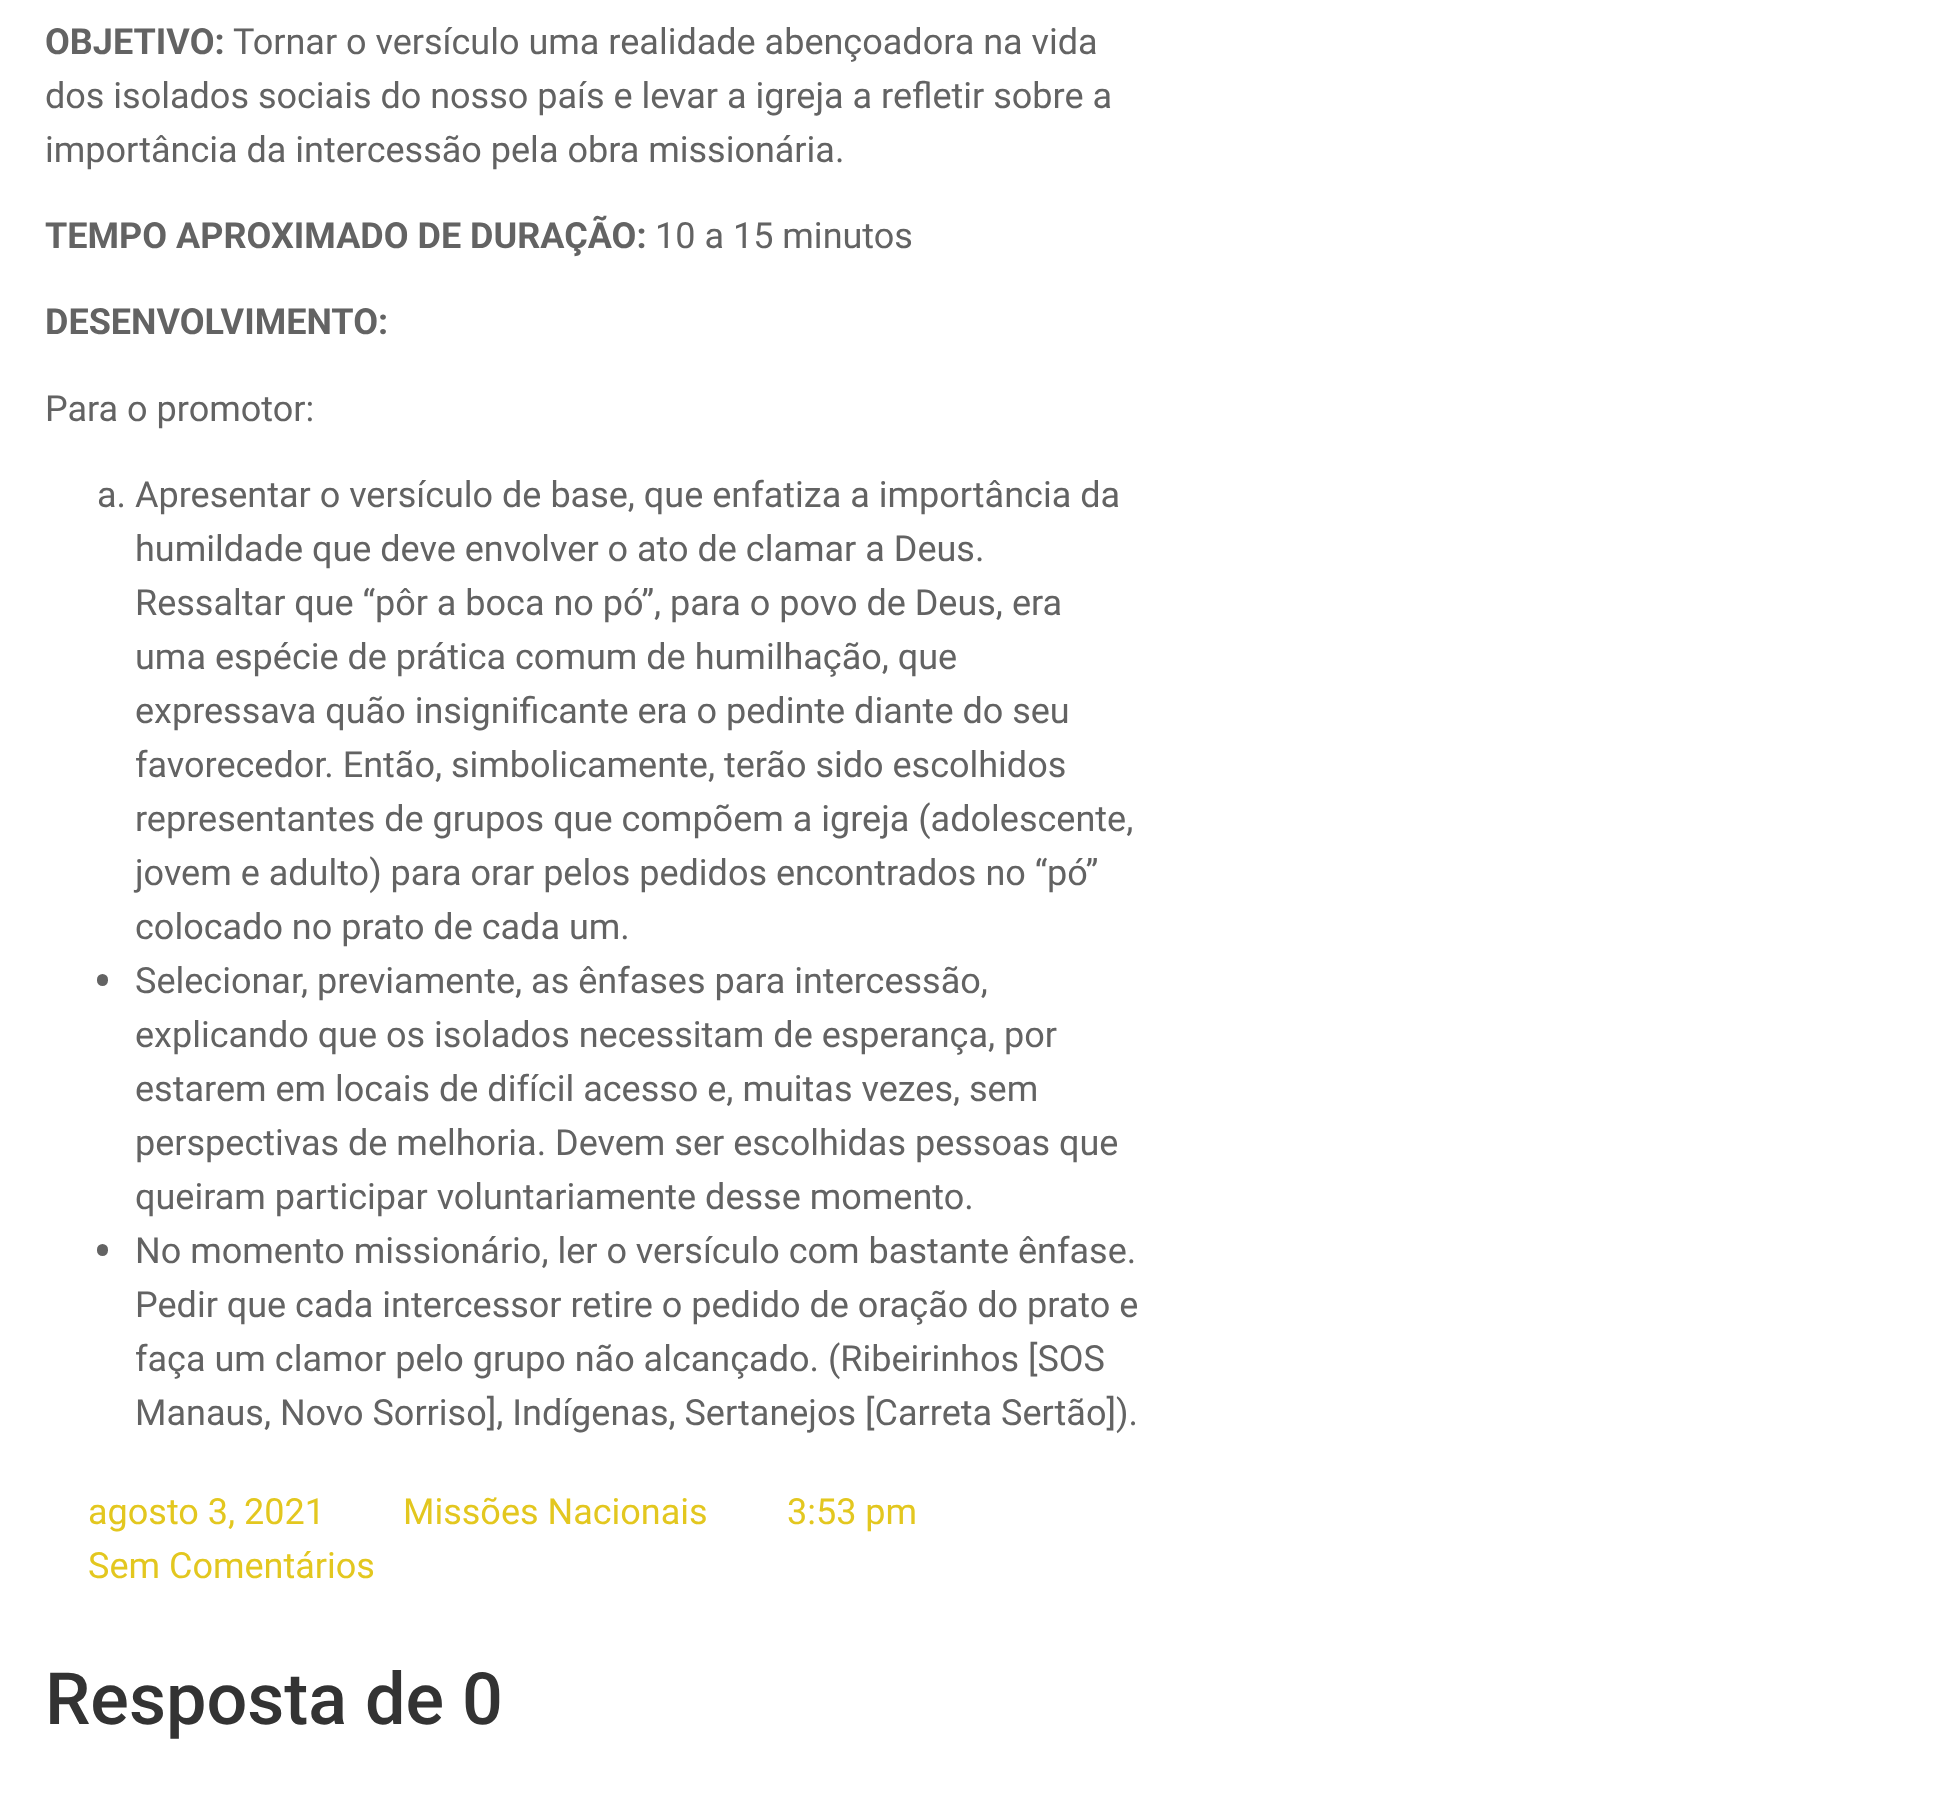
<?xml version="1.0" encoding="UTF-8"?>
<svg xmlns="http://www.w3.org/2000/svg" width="1943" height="1812">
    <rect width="100%" height="100%" fill="#FFFFFF"/>
    <text x="45" y="54" font-family="Roboto" font-size="36" font-weight="700" fill="#636363">OBJETIVO:</text>
    <text x="233" y="54" font-family="Roboto" font-size="36" fill="#636363">Tornar o versículo uma realidade abençoadora na vida</text>
    <text font-family="Roboto" font-size="36" fill="#636363">
        <tspan x="45" y="108">dos isolados sociais do nosso país e levar a igreja a refletir sobre a</tspan>
        <tspan x="45" y="162">importância da intercessão pela obra missionária.</tspan>
    </text>
    <text x="45" y="248" font-family="Roboto" font-size="36" font-weight="700" fill="#636363">TEMPO APROXIMADO DE DURAÇÃO:</text>
    <text x="655" y="248" font-family="Roboto" font-size="36" fill="#636363">10 a 15 minutos</text>
    <text x="45" y="334" font-family="Roboto" font-size="36" font-weight="700" fill="#636363">DESENVOLVIMENTO:</text>
    <text x="45" y="421" font-family="Roboto" font-size="36" fill="#636363">Para o promotor:</text>
    <text x="97" y="507" font-family="Roboto" font-size="36" fill="#636363">a. Apresentar o versículo de base, que enfatiza a importância da</text>
    <text font-family="Roboto" font-size="36" fill="#636363">
        <tspan x="135" y="561">humildade que deve envolver o ato de clamar a Deus.</tspan>
        <tspan x="135" y="615">Ressaltar que “pôr a boca no pó”, para o povo de Deus, era</tspan>
        <tspan x="135" y="669">uma espécie de prática comum de humilhação, que</tspan>
        <tspan x="135" y="723">expressava quão insignificante era o pedinte diante do seu</tspan>
        <tspan x="135" y="777">favorecedor. Então, simbolicamente, terão sido escolhidos</tspan>
        <tspan x="135" y="831">representantes de grupos que compõem a igreja (adolescente,</tspan>
        <tspan x="135" y="885">jovem e adulto) para orar pelos pedidos encontrados no “pó”</tspan>
        <tspan x="135" y="939">colocado no prato de cada um.</tspan>
    </text>
    <rect x="97" y="974" width="11" height="12" rx="5.5" fill="#636363"/>
    <text font-family="Roboto" font-size="36" fill="#636363">
        <tspan x="135" y="993">Selecionar, previamente, as ênfases para intercessão,</tspan>
        <tspan x="135" y="1047">explicando que os isolados necessitam de esperança, por</tspan>
        <tspan x="135" y="1101">estarem em locais de difícil acesso e, muitas vezes, sem</tspan>
        <tspan x="135" y="1155">perspectivas de melhoria. Devem ser escolhidas pessoas que</tspan>
        <tspan x="135" y="1209">queiram participar voluntariamente desse momento.</tspan>
    </text>
    <rect x="97" y="1244" width="11" height="12" rx="5.5" fill="#636363"/>
    <text font-family="Roboto" font-size="36" fill="#636363">
        <tspan x="135" y="1263">No momento missionário, ler o versículo com bastante ênfase.</tspan>
        <tspan x="135" y="1317">Pedir que cada intercessor retire o pedido de oração do prato e</tspan>
        <tspan x="135" y="1371">faça um clamor pelo grupo não alcançado. (Ribeirinhos [SOS</tspan>
        <tspan x="135" y="1425">Manaus, Novo Sorriso], Indígenas, Sertanejos [Carreta Sertão]).</tspan>
    </text>
    <text x="88" y="1524" font-family="Roboto" font-size="36" fill="#E3C71F">agosto 3, 2021</text>
    <text x="403" y="1524" font-family="Roboto" font-size="36" fill="#E3C71F">Missões Nacionais</text>
    <text x="787" y="1524" font-family="Roboto" font-size="36" fill="#E3C71F">3:53 pm</text>
    <text x="88" y="1578" font-family="Roboto" font-size="36" fill="#E3C71F">Sem Comentários</text>
    <text x="45" y="1724" font-family="Roboto" font-size="72" font-weight="500" fill="#333333">Resposta de 0</text>
</svg>
